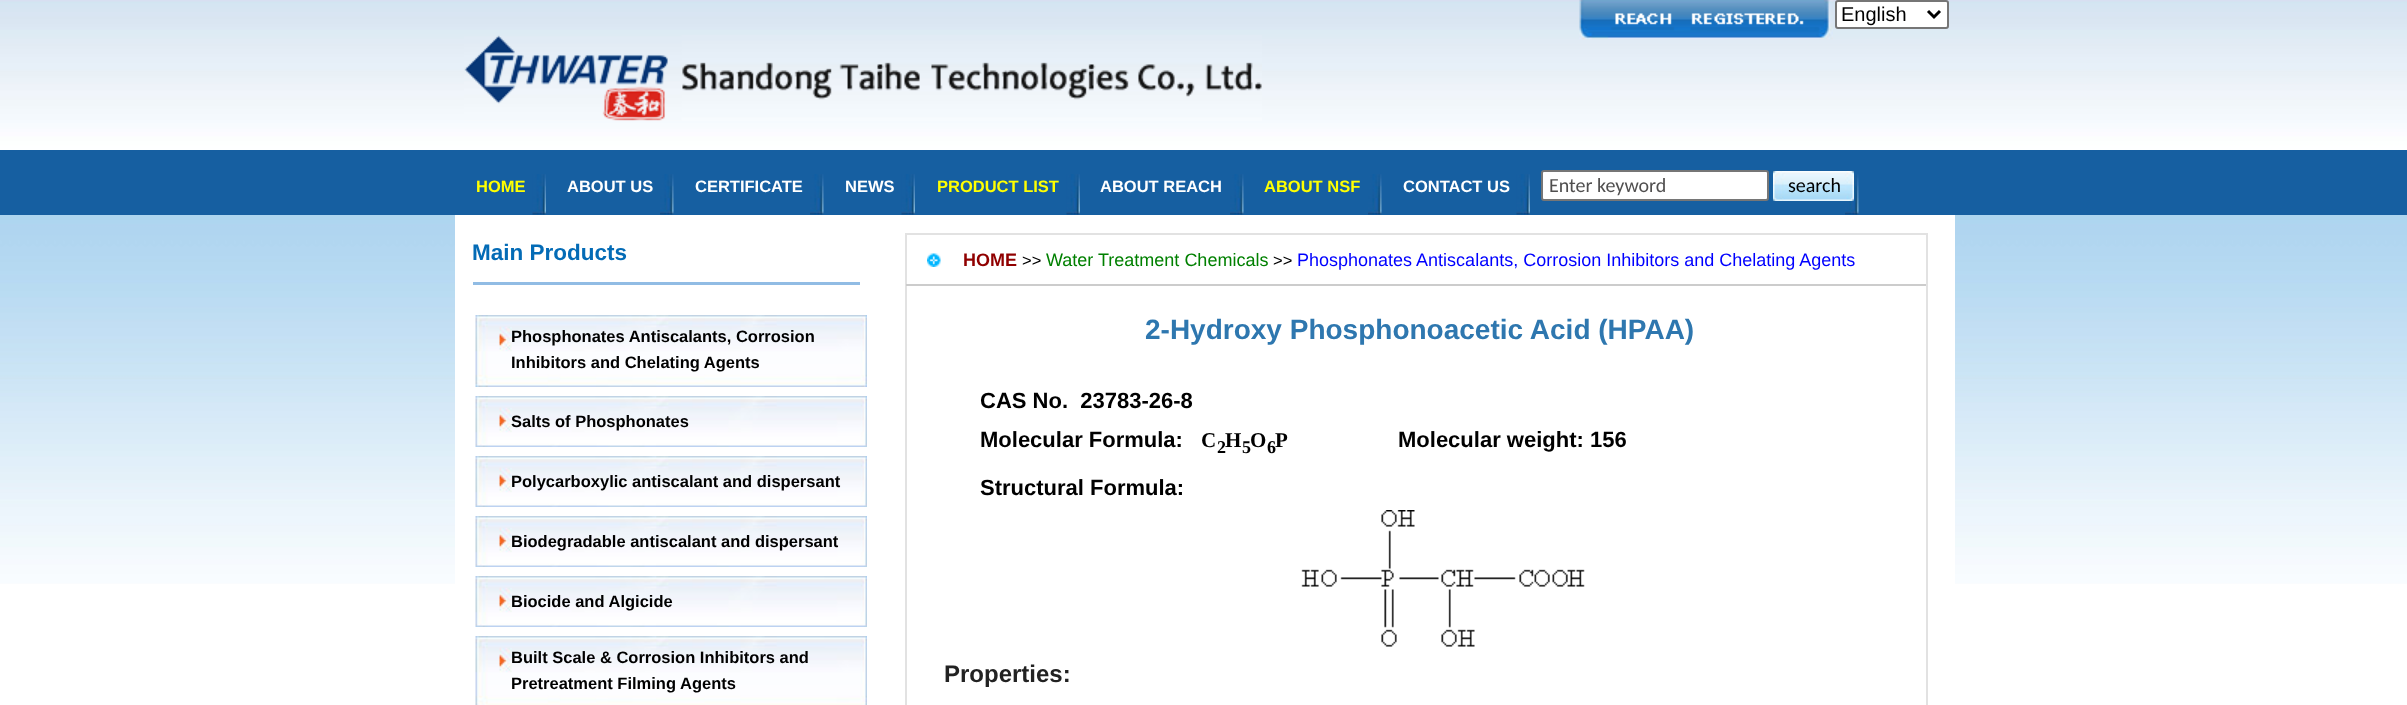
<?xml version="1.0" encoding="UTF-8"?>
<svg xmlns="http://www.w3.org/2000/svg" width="2407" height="705">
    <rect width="100%" height="100%" fill="#FFFFFF"/>
    <image x="0" y="215" width="2407" height="369" href="img_01.png"/>
    <image x="0" y="0" width="2407" height="150" href="img_02.png"/>
    <image x="1579" y="0" width="254" height="40" href="img_03.png"/>
    <rect x="1836" y="1" width="112" height="27" rx="2" fill="#FFFFFF" stroke="#767676" stroke-width="2"/>
    <path d="M 1928 11 L 1934 17 L 1940 11" fill="none" stroke="#000000" stroke-width="3"/>
    <text x="1841" y="21" font-family="Liberation Sans" font-size="20" fill="#000000">English</text>
    <image x="464" y="35" width="798" height="86" href="img_04.png"/>
    <rect x="0" y="150" width="2407" height="65" fill="#165FA1"/>
    <image x="532" y="174" width="14" height="41" href="img_05.png"/>
    <text x="476" y="192" font-family="Liberation Sans" font-size="16.5" font-weight="700" fill="#FFFF00">HOME</text>
    <image x="660" y="174" width="14" height="41" href="img_06.png"/>
    <text x="567" y="192" font-family="Liberation Sans" font-size="16.5" font-weight="700" fill="#FFFFFF">ABOUT US</text>
    <image x="810" y="174" width="14" height="41" href="img_06.png"/>
    <text x="695" y="192" font-family="Liberation Sans" font-size="16.5" font-weight="700" fill="#FFFFFF">CERTIFICATE</text>
    <image x="901" y="174" width="14" height="41" href="img_07.png"/>
    <text x="845" y="192" font-family="Liberation Sans" font-size="16.5" font-weight="700" fill="#FFFFFF">NEWS</text>
    <image x="1066" y="174" width="14" height="41" href="img_07.png"/>
    <text x="937" y="192" font-family="Liberation Sans" font-size="16.5" font-weight="700" fill="#FFFF00">PRODUCT LIST</text>
    <image x="1230" y="174" width="14" height="41" href="img_08.png"/>
    <text x="1100" y="192" font-family="Liberation Sans" font-size="16.5" font-weight="700" fill="#FFFFFF">ABOUT REACH</text>
    <image x="1368" y="174" width="14" height="41" href="img_06.png"/>
    <text x="1264" y="192" font-family="Liberation Sans" font-size="16.5" font-weight="700" fill="#FFFF00">ABOUT NSF</text>
    <image x="1516" y="174" width="14" height="41" href="img_09.png"/>
    <text x="1403" y="192" font-family="Liberation Sans" font-size="16.5" font-weight="700" fill="#FFFFFF">CONTACT US</text>
    <image x="1845" y="174" width="14" height="41" href="img_08.png"/>
    <rect x="1542" y="171" width="226" height="29" rx="2" fill="#FFFFFF" stroke="#767676" stroke-width="2"/>
    <text x="1549" y="192" font-family="Carlito" font-size="20" fill="#504F4F">Enter keyword</text>
    <image x="1773" y="171" width="81" height="30" href="img_10.png"/>
    <text x="1788" y="192" font-family="Carlito" font-size="20" fill="#000000">search</text>
    <rect x="455" y="215" width="1500" height="369" fill="#FFFFFF"/>
    <rect x="473" y="282" width="387" height="3" fill="#91BCE4"/>
    <text x="472" y="260" font-family="Liberation Sans" font-size="22.5" font-weight="700" fill="#036BB6">Main Products</text>
    <image x="475" y="315" width="392" height="72" href="img_11.png"/>
    <text font-family="Liberation Sans" font-size="16.5" font-weight="700" fill="#000000">
        <tspan x="511" y="342">Phosphonates Antiscalants, Corrosion</tspan>
        <tspan x="511" y="368">Inhibitors and Chelating Agents</tspan>
    </text>
    <image x="475" y="396" width="392" height="51" href="img_12.png"/>
    <text x="511" y="427" font-family="Liberation Sans" font-size="16.5" font-weight="700" fill="#000000">Salts of Phosphonates</text>
    <image x="475" y="456" width="392" height="51" href="img_12.png"/>
    <text x="511" y="487" font-family="Liberation Sans" font-size="16.5" font-weight="700" fill="#000000">Polycarboxylic antiscalant and dispersant</text>
    <image x="475" y="516" width="392" height="51" href="img_12.png"/>
    <text x="511" y="547" font-family="Liberation Sans" font-size="16.5" font-weight="700" fill="#000000">Biodegradable antiscalant and dispersant</text>
    <image x="475" y="576" width="392" height="51" href="img_12.png"/>
    <text x="511" y="607" font-family="Liberation Sans" font-size="16.5" font-weight="700" fill="#000000">Biocide and Algicide</text>
    <image x="475" y="636" width="392" height="69" href="img_13.png"/>
    <text font-family="Liberation Sans" font-size="16.5" font-weight="700" fill="#000000">
        <tspan x="511" y="663">Built Scale &amp; Corrosion Inhibitors and</tspan>
        <tspan x="511" y="689">Pretreatment Filming Agents</tspan>
    </text>
    <rect x="906" y="234" width="1021" height="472" fill="none" stroke="#E2E2E2" stroke-width="2"/>
    <rect x="906" y="284" width="1020" height="2" fill="#CCCCCC"/>
    <image x="927" y="253" width="14" height="14" href="img_14.png"/>
    <text x="963" y="266" font-family="Liberation Sans" font-size="18" font-weight="700" fill="#900000">HOME</text>
    <text x="1022" y="266" font-family="Liberation Sans" font-size="16.5" fill="#000000">&gt;&gt;</text>
    <text x="1046" y="266" font-family="Liberation Sans" font-size="18" fill="#008000">Water Treatment Chemicals</text>
    <text x="1273" y="266" font-family="Liberation Sans" font-size="16.5" fill="#000000">&gt;&gt;</text>
    <text x="1297" y="266" font-family="Liberation Sans" font-size="18" fill="#0000FF">Phosphonates Antiscalants, Corrosion Inhibitors and Chelating Agents</text>
    <text x="1145" y="339" font-family="Liberation Sans" font-size="28" font-weight="700" fill="#2E77AF">2-Hydroxy Phosphonoacetic Acid (HPAA)</text>
    <text font-family="Liberation Sans" font-size="22" font-weight="700" fill="#000000" xml:space="preserve"><tspan x="980" y="408">CAS No.  23783-26-8</tspan><tspan x="980" y="447">Molecular Formula:</tspan></text>
    <text x="1201" y="447" font-family="Liberation Serif" font-size="21" font-weight="700" fill="#000000">C</text>
    <text x="1217" y="453" font-family="Liberation Serif" font-size="18" font-weight="700" fill="#000000">2</text>
    <text x="1225" y="447" font-family="Liberation Serif" font-size="21" font-weight="700" fill="#000000">H</text>
    <text x="1242" y="453" font-family="Liberation Serif" font-size="18" font-weight="700" fill="#000000">5</text>
    <text x="1250" y="447" font-family="Liberation Serif" font-size="21" font-weight="700" fill="#000000">O</text>
    <text x="1267" y="453" font-family="Liberation Serif" font-size="18" font-weight="700" fill="#000000">6</text>
    <text x="1275" y="447" font-family="Liberation Serif" font-size="21" font-weight="700" fill="#000000">P</text>
    <text x="1398" y="447" font-family="Liberation Sans" font-size="22" font-weight="700" fill="#000000">Molecular weight: 156</text>
    <text x="980" y="495" font-family="Liberation Sans" font-size="22" font-weight="700" fill="#000000">Structural Formula:</text>
    <image x="1301" y="510" width="284" height="137" href="img_15.png"/>
    <text x="944" y="682" font-family="Liberation Sans" font-size="24" font-weight="700" fill="#222222">Properties:</text>
</svg>
